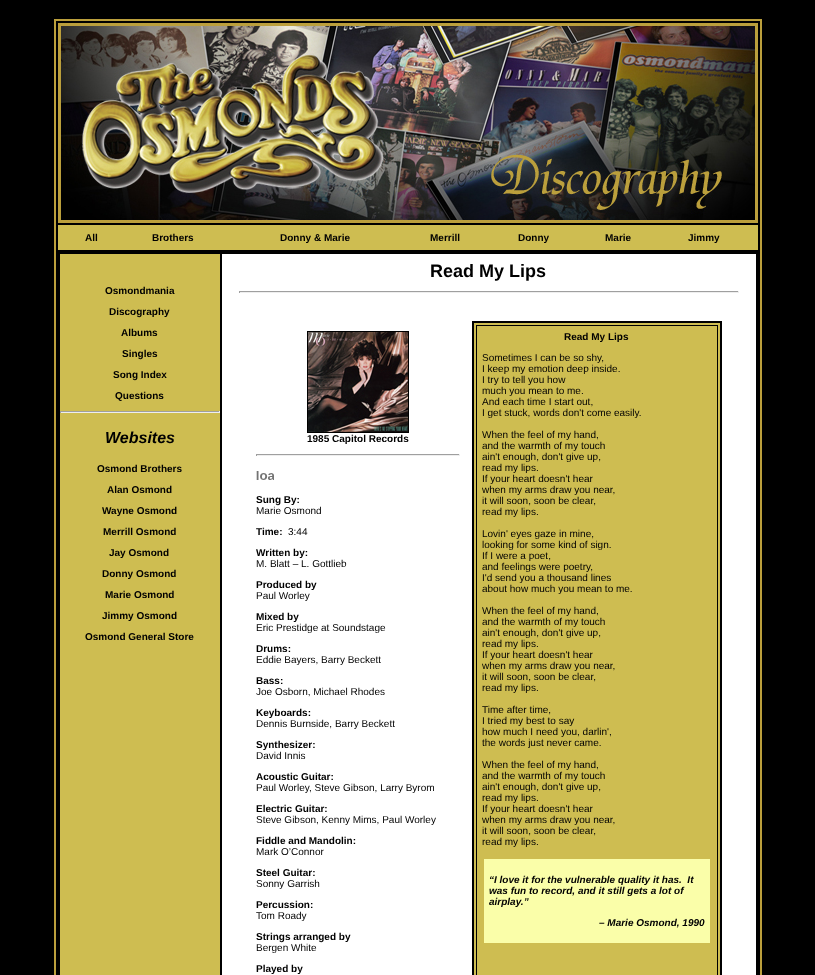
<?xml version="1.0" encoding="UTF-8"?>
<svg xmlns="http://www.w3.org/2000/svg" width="815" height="975">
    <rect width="100%" height="100%" fill="#000000"/>
    <rect x="54.5" y="19.5" width="707" height="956" fill="none" stroke="#BB9F3C"/>
    <rect x="55.5" y="20.5" width="705" height="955" fill="none" stroke="#BB9F3C"/>
    <image x="58" y="23" width="700" height="200" href="img_01.png"/>
    <rect x="58" y="225" width="700" height="25" fill="#CEBD51"/>
    <text x="85" y="241" font-family="Liberation Sans" font-size="10" font-weight="700" fill="#000000">All</text>
    <text x="152" y="241" font-family="Liberation Sans" font-size="10" font-weight="700" fill="#000000">Brothers</text>
    <text x="280" y="241" font-family="Liberation Sans" font-size="10" font-weight="700" fill="#000000">Donny &amp; Marie</text>
    <text x="430" y="241" font-family="Liberation Sans" font-size="10" font-weight="700" fill="#000000">Merrill</text>
    <text x="518" y="241" font-family="Liberation Sans" font-size="10" font-weight="700" fill="#000000">Donny</text>
    <text x="605" y="241" font-family="Liberation Sans" font-size="10" font-weight="700" fill="#000000">Marie</text>
    <text x="688" y="241" font-family="Liberation Sans" font-size="10" font-weight="700" fill="#000000">Jimmy</text>
    <rect x="60" y="254" width="160" height="721" fill="#CEBD51"/>
    <text x="105" y="294" font-family="Liberation Sans" font-size="10" font-weight="700" fill="#000000">Osmondmania</text>
    <text x="109" y="315" font-family="Liberation Sans" font-size="10" font-weight="700" fill="#000000">Discography</text>
    <text x="121" y="336" font-family="Liberation Sans" font-size="10" font-weight="700" fill="#000000">Albums</text>
    <text x="122" y="357" font-family="Liberation Sans" font-size="10" font-weight="700" fill="#000000">Singles</text>
    <text x="113" y="378" font-family="Liberation Sans" font-size="10" font-weight="700" fill="#000000">Song Index</text>
    <text x="115" y="399" font-family="Liberation Sans" font-size="10" font-weight="700" fill="#000000">Questions</text>
    <rect x="60" y="411" width="160" height="1" fill="#9F9F9F"/>
    <rect x="219" y="411" width="1" height="2" fill="#EEEEEE"/>
    <rect x="60" y="412" width="160" height="1" fill="#EEEEEE"/>
    <rect x="60" y="411" width="1" height="2" fill="#9F9F9F"/>
    <text x="105" y="443" font-family="Liberation Sans" font-size="16" font-weight="700" font-style="italic" fill="#000000">Websites</text>
    <text x="97" y="472" font-family="Liberation Sans" font-size="10" font-weight="700" fill="#000000">Osmond Brothers</text>
    <text x="107" y="493" font-family="Liberation Sans" font-size="10" font-weight="700" fill="#000000">Alan Osmond</text>
    <text x="102" y="514" font-family="Liberation Sans" font-size="10" font-weight="700" fill="#000000">Wayne Osmond</text>
    <text x="103" y="535" font-family="Liberation Sans" font-size="10" font-weight="700" fill="#000000">Merrill Osmond</text>
    <text x="109" y="556" font-family="Liberation Sans" font-size="10" font-weight="700" fill="#000000">Jay Osmond</text>
    <text x="102" y="577" font-family="Liberation Sans" font-size="10" font-weight="700" fill="#000000">Donny Osmond</text>
    <text x="105" y="598" font-family="Liberation Sans" font-size="10" font-weight="700" fill="#000000">Marie Osmond</text>
    <text x="102" y="619" font-family="Liberation Sans" font-size="10" font-weight="700" fill="#000000">Jimmy Osmond</text>
    <text x="85" y="640" font-family="Liberation Sans" font-size="10" font-weight="700" fill="#000000">Osmond General Store</text>
    <rect x="222" y="254" width="534" height="721" fill="#FFFFFF"/>
    <text x="430" y="277" font-family="Liberation Sans" font-size="18" font-weight="700" fill="#000000">Read My Lips</text>
    <rect x="239" y="291" width="500" height="1" fill="#9F9F9F"/>
    <rect x="738" y="291" width="1" height="2" fill="#EEEEEE"/>
    <rect x="239" y="292" width="500" height="1" fill="#EEEEEE"/>
    <rect x="239" y="291" width="1" height="2" fill="#9F9F9F"/>
    <rect x="307.5" y="331.5" width="101" height="101" fill="none" stroke="#000000"/>
    <image x="308" y="332" width="100" height="100" href="img_02.png"/>
    <text x="307" y="442" font-family="Liberation Sans" font-size="10" font-weight="700" fill="#000000">1985 Capitol Records</text>
    <rect x="256" y="454" width="204" height="1" fill="#9F9F9F"/>
    <rect x="459" y="454" width="1" height="2" fill="#EEEEEE"/>
    <rect x="256" y="455" width="204" height="1" fill="#EEEEEE"/>
    <rect x="256" y="454" width="1" height="2" fill="#9F9F9F"/>
    <image x="256" y="471" width="18" height="9" href="img_03.png"/>
    <text x="256" y="503" font-family="Liberation Sans" font-size="10" font-weight="700" fill="#000000">Sung By:</text>
    <text x="256" y="514" font-family="Liberation Sans" font-size="10" fill="#000000">Marie Osmond</text>
    <text x="256" y="535" font-family="Liberation Sans" font-size="10" font-weight="700" fill="#000000">Time:</text>
    <text x="288" y="535" font-family="Liberation Sans" font-size="10" fill="#000000">3:44</text>
    <text x="256" y="556" font-family="Liberation Sans" font-size="10" font-weight="700" fill="#000000">Written by:</text>
    <text x="256" y="567" font-family="Liberation Sans" font-size="10" fill="#000000">M. Blatt – L. Gottlieb</text>
    <text x="256" y="588" font-family="Liberation Sans" font-size="10" font-weight="700" fill="#000000">Produced by</text>
    <text x="256" y="599" font-family="Liberation Sans" font-size="10" fill="#000000">Paul Worley</text>
    <text x="256" y="620" font-family="Liberation Sans" font-size="10" font-weight="700" fill="#000000">Mixed by</text>
    <text x="256" y="631" font-family="Liberation Sans" font-size="10" fill="#000000">Eric Prestidge at Soundstage</text>
    <text x="256" y="652" font-family="Liberation Sans" font-size="10" font-weight="700" fill="#000000">Drums:</text>
    <text x="256" y="663" font-family="Liberation Sans" font-size="10" fill="#000000">Eddie Bayers, Barry Beckett</text>
    <text x="256" y="684" font-family="Liberation Sans" font-size="10" font-weight="700" fill="#000000">Bass:</text>
    <text x="256" y="695" font-family="Liberation Sans" font-size="10" fill="#000000">Joe Osborn, Michael Rhodes</text>
    <text x="256" y="716" font-family="Liberation Sans" font-size="10" font-weight="700" fill="#000000">Keyboards:</text>
    <text x="256" y="727" font-family="Liberation Sans" font-size="10" fill="#000000">Dennis Burnside, Barry Beckett</text>
    <text x="256" y="748" font-family="Liberation Sans" font-size="10" font-weight="700" fill="#000000">Synthesizer:</text>
    <text x="256" y="759" font-family="Liberation Sans" font-size="10" fill="#000000">David Innis</text>
    <text x="256" y="780" font-family="Liberation Sans" font-size="10" font-weight="700" fill="#000000">Acoustic Guitar:</text>
    <text x="256" y="791" font-family="Liberation Sans" font-size="10" fill="#000000">Paul Worley, Steve Gibson, Larry Byrom</text>
    <text x="256" y="812" font-family="Liberation Sans" font-size="10" font-weight="700" fill="#000000">Electric Guitar:</text>
    <text x="256" y="823" font-family="Liberation Sans" font-size="10" fill="#000000">Steve Gibson, Kenny Mims, Paul Worley</text>
    <text x="256" y="844" font-family="Liberation Sans" font-size="10" font-weight="700" fill="#000000">Fiddle and Mandolin:</text>
    <text x="256" y="855" font-family="Liberation Sans" font-size="10" fill="#000000">Mark O’Connor</text>
    <text x="256" y="876" font-family="Liberation Sans" font-size="10" font-weight="700" fill="#000000">Steel Guitar:</text>
    <text x="256" y="887" font-family="Liberation Sans" font-size="10" fill="#000000">Sonny Garrish</text>
    <text x="256" y="908" font-family="Liberation Sans" font-size="10" font-weight="700" fill="#000000">Percussion:</text>
    <text x="256" y="919" font-family="Liberation Sans" font-size="10" fill="#000000">Tom Roady</text>
    <text x="256" y="940" font-family="Liberation Sans" font-size="10" font-weight="700" fill="#000000">Strings arranged by</text>
    <text x="256" y="951" font-family="Liberation Sans" font-size="10" fill="#000000">Bergen White</text>
    <text x="256" y="972" font-family="Liberation Sans" font-size="10" font-weight="700" fill="#000000">Played by</text>
    <rect x="473" y="322" width="248" height="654" fill="#CEBD51" stroke="#000000" stroke-width="2"/>
    <rect x="476.5" y="325.5" width="241" height="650" fill="none" stroke="#000000"/>
    <text x="564" y="340" font-family="Liberation Sans" font-size="10" font-weight="700" fill="#000000">Read My Lips</text>
    <text font-family="Liberation Sans" font-size="10" fill="#000000">
        <tspan x="482" y="361">Sometimes I can be so shy,</tspan>
        <tspan x="482" y="372">I keep my emotion deep inside.</tspan>
        <tspan x="482" y="383">I try to tell you how</tspan>
        <tspan x="482" y="394">much you mean to me.</tspan>
        <tspan x="482" y="405">And each time I start out,</tspan>
        <tspan x="482" y="416">I get stuck, words don't come easily.</tspan>
    </text>
    <text font-family="Liberation Sans" font-size="10" fill="#000000">
        <tspan x="482" y="438">When the feel of my hand,</tspan>
        <tspan x="482" y="449">and the warmth of my touch</tspan>
        <tspan x="482" y="460">ain't enough, don't give up,</tspan>
        <tspan x="482" y="471">read my lips.</tspan>
        <tspan x="482" y="482">If your heart doesn't hear</tspan>
        <tspan x="482" y="493">when my arms draw you near,</tspan>
        <tspan x="482" y="504">it will soon, soon be clear,</tspan>
        <tspan x="482" y="515">read my lips.</tspan>
    </text>
    <text font-family="Liberation Sans" font-size="10" fill="#000000">
        <tspan x="482" y="537">Lovin' eyes gaze in mine,</tspan>
        <tspan x="482" y="548">looking for some kind of sign.</tspan>
        <tspan x="482" y="559">If I were a poet,</tspan>
        <tspan x="482" y="570">and feelings were poetry,</tspan>
        <tspan x="482" y="581">I'd send you a thousand lines</tspan>
        <tspan x="482" y="592">about how much you mean to me.</tspan>
    </text>
    <text font-family="Liberation Sans" font-size="10" fill="#000000">
        <tspan x="482" y="614">When the feel of my hand,</tspan>
        <tspan x="482" y="625">and the warmth of my touch</tspan>
        <tspan x="482" y="636">ain't enough, don't give up,</tspan>
        <tspan x="482" y="647">read my lips.</tspan>
        <tspan x="482" y="658">If your heart doesn't hear</tspan>
        <tspan x="482" y="669">when my arms draw you near,</tspan>
        <tspan x="482" y="680">it will soon, soon be clear,</tspan>
        <tspan x="482" y="691">read my lips.</tspan>
    </text>
    <text font-family="Liberation Sans" font-size="10" fill="#000000">
        <tspan x="482" y="713">Time after time,</tspan>
        <tspan x="482" y="724">I tried my best to say</tspan>
        <tspan x="482" y="735">how much I need you, darlin',</tspan>
        <tspan x="482" y="746">the words just never came.</tspan>
    </text>
    <text font-family="Liberation Sans" font-size="10" fill="#000000">
        <tspan x="482" y="768">When the feel of my hand,</tspan>
        <tspan x="482" y="779">and the warmth of my touch</tspan>
        <tspan x="482" y="790">ain't enough, don't give up,</tspan>
        <tspan x="482" y="801">read my lips.</tspan>
        <tspan x="482" y="812">If your heart doesn't hear</tspan>
        <tspan x="482" y="823">when my arms draw you near,</tspan>
        <tspan x="482" y="834">it will soon, soon be clear,</tspan>
        <tspan x="482" y="845">read my lips.</tspan>
    </text>
    <rect x="484" y="859" width="226" height="84" fill="#FAFEA9"/>
    <text font-family="Liberation Sans" font-size="10" font-weight="700" font-style="italic" fill="#000000" xml:space="preserve"><tspan x="489" y="883">“I love it for the vulnerable quality it has.  It</tspan><tspan x="489" y="894">was fun to record, and it still gets a lot of</tspan><tspan x="489" y="905">airplay.”</tspan></text>
    <text x="599" y="926" font-family="Liberation Sans" font-size="10" font-weight="700" font-style="italic" fill="#000000">– Marie Osmond, 1990</text>
</svg>
